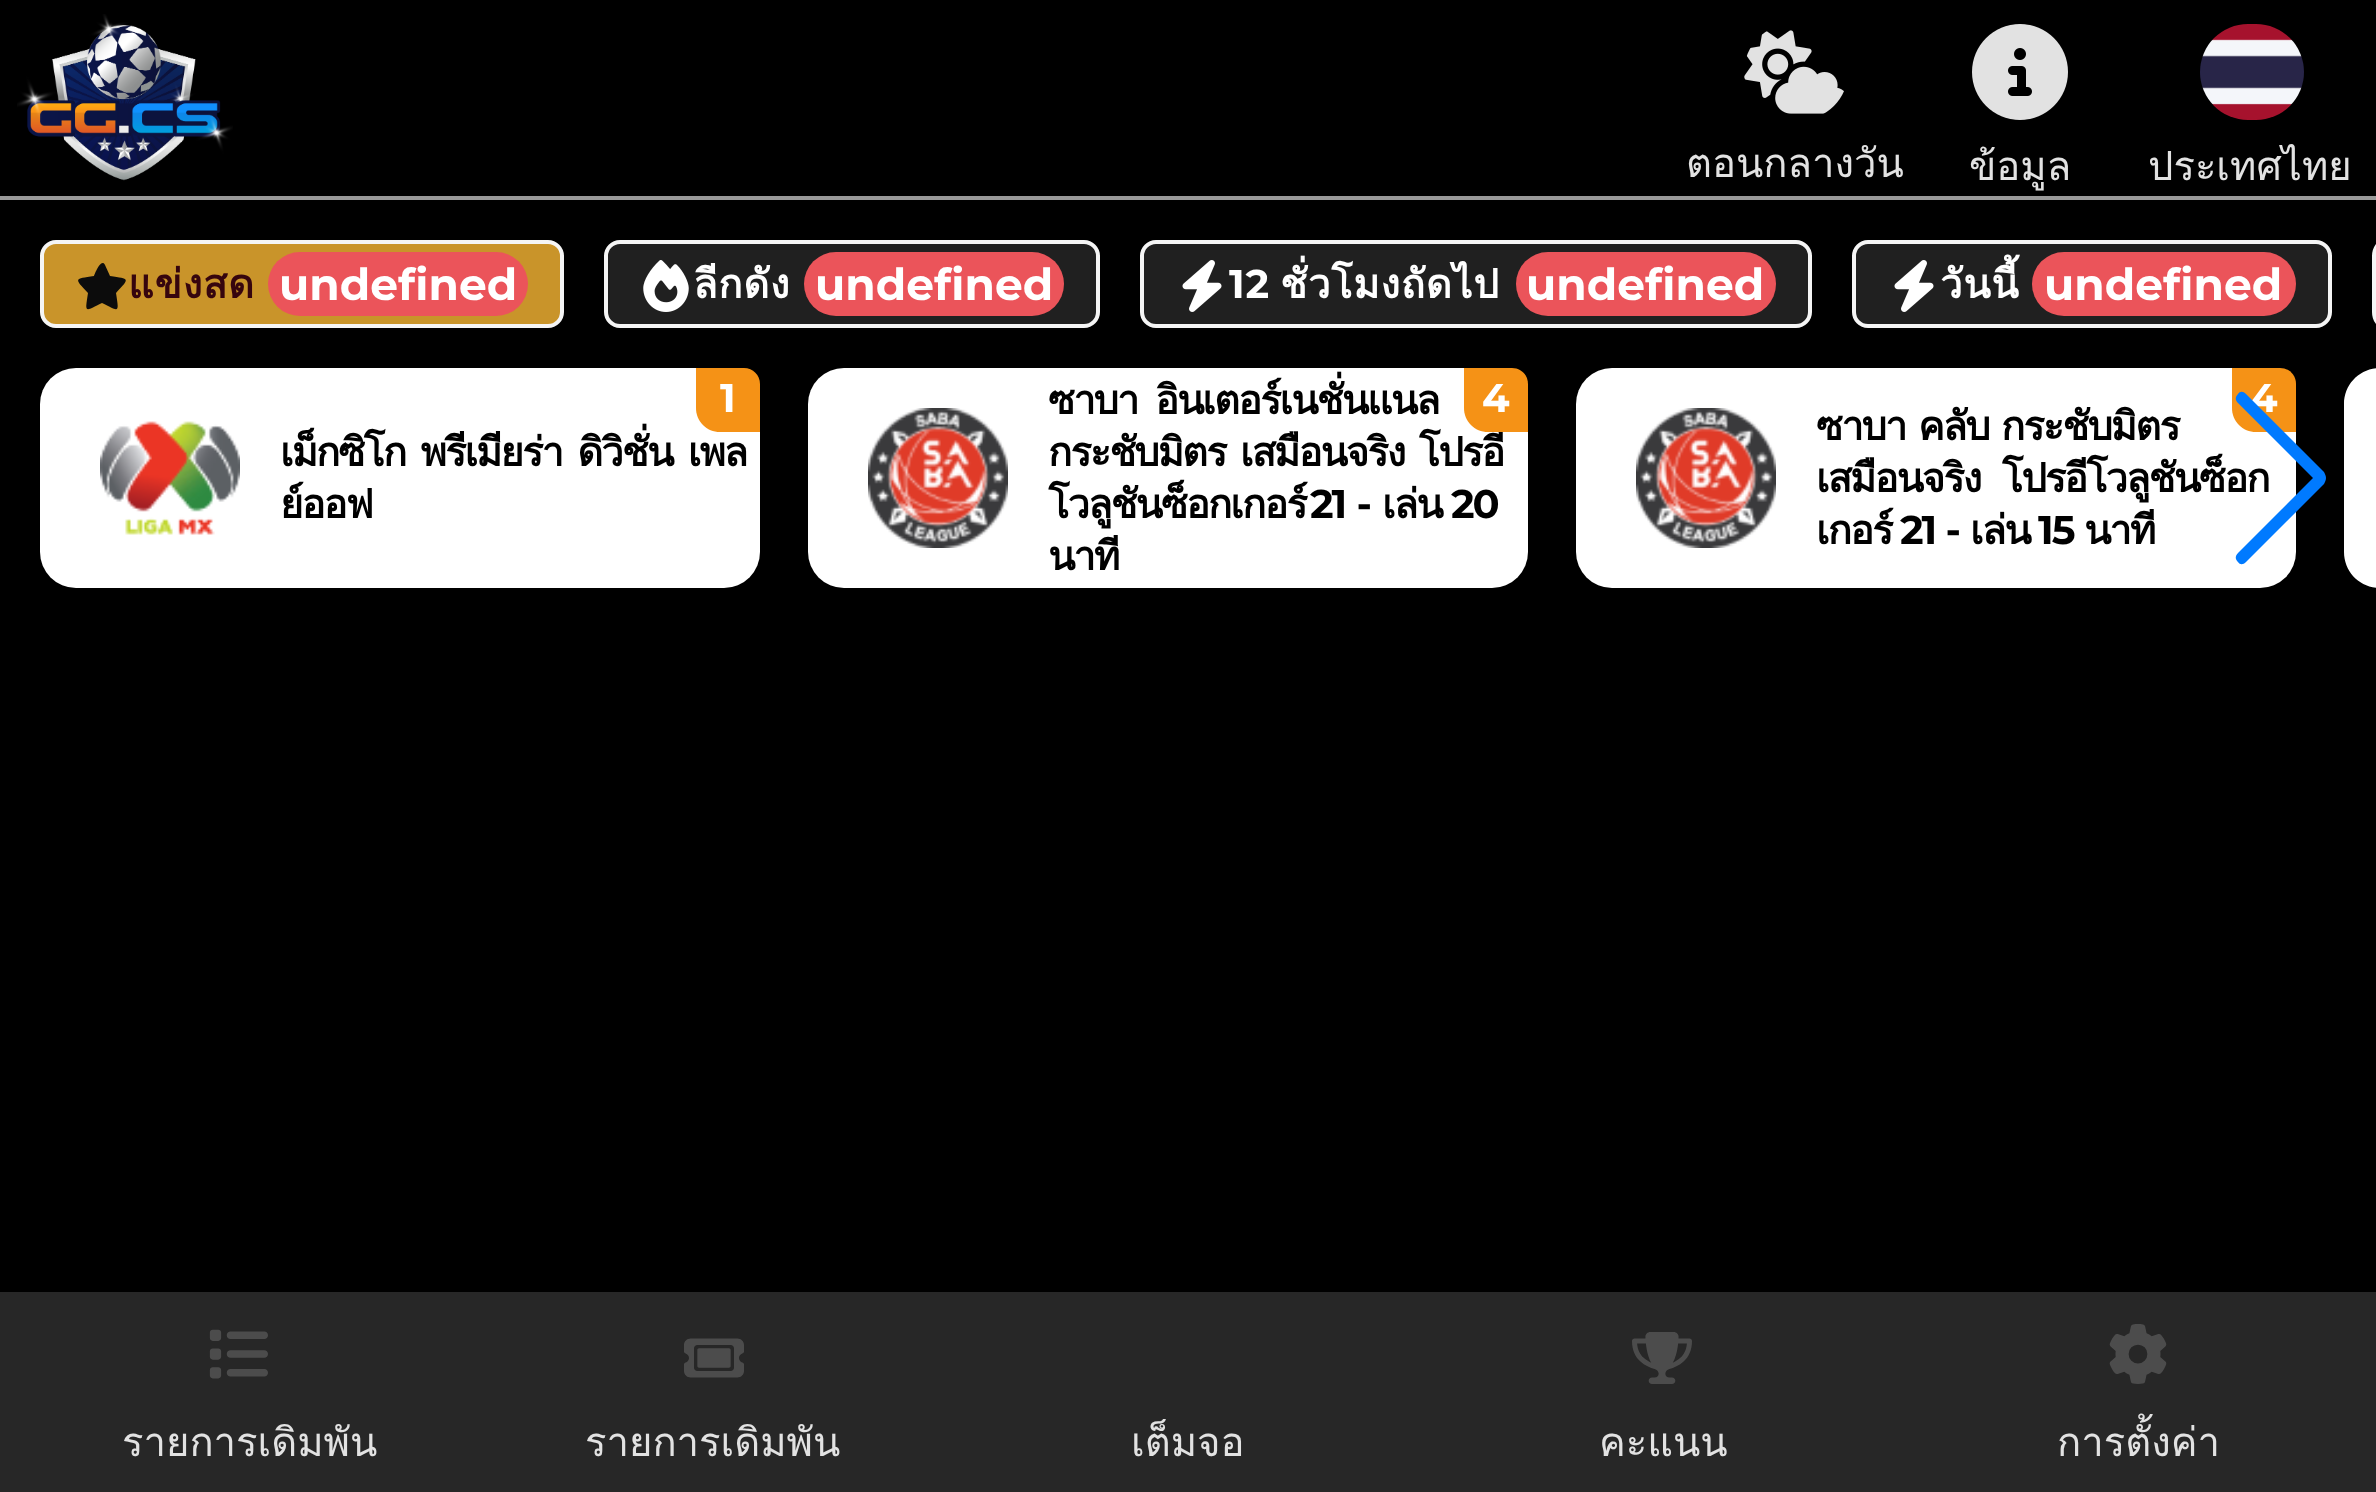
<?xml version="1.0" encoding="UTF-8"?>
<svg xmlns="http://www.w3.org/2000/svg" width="2376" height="1492">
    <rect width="100%" height="100%" fill="#000000"/>
    <rect x="0" y="196" width="2376" height="4" fill="#999999"/>
    <image x="17" y="14" width="216" height="167" href="img_01.png"/>
    <image x="1744" y="30" width="100" height="84" href="img_02.png"/>
    <text x="1686" y="177" font-family="Loma" font-size="40" fill="#E2E2E2">ตอนกลางวัน</text>
    <image x="1972" y="24" width="96" height="96" href="img_03.png"/>
    <text x="1969" y="180" font-family="Loma" font-size="40" fill="#E2E2E2">ข้อมูล</text>
    <image x="2200" y="24" width="104" height="96" href="img_04.png"/>
    <text x="2148" y="180" font-family="Loma" font-size="40" fill="#E2E2E2">ประเทศไทย</text>
    <rect x="42" y="242" width="520" height="84" rx="14" fill="#C9942A" stroke="#F5F5F5" stroke-width="4"/>
    <path d="M 105 265 C 101 257 94 276 94 276 C 74 279 74 278 88 293 C 85 313 84 312 102 303 C 120 312 119 313 116 293 C 130 278 130 279 110 276 Z" fill="#0C0C0C"/>
    <text x="128" y="298" font-family="Loma" font-size="40" font-weight="700" letter-spacing="0.75" fill="#36050E">แข่งสด</text>
    <rect x="268" y="252" width="260" height="64" rx="32" fill="#EB545A"/>
    <text x="279" y="300" font-family="Montserrat" font-size="44" font-weight="700" fill="#FFFFFF">undefined</text>
    <rect x="606" y="242" width="492" height="84" rx="14" fill="#202020" stroke="#F5F5F5" stroke-width="4"/>
    <image x="643" y="260" width="46" height="52" href="img_05.png"/>
    <text x="693" y="298" font-family="Loma" font-size="40" font-weight="700" letter-spacing="0.75" fill="#FFFFFF">ลีกดัง</text>
    <rect x="804" y="252" width="260" height="64" rx="32" fill="#EB545A"/>
    <text x="815" y="300" font-family="Montserrat" font-size="44" font-weight="700" fill="#FFFFFF">undefined</text>
    <rect x="1142" y="242" width="668" height="84" rx="14" fill="#202020" stroke="#F5F5F5" stroke-width="4"/>
    <image x="1182" y="260" width="40" height="52" href="img_06.png"/>
    <text x="1229" y="298" font-family="Montserrat" font-size="40" font-weight="700" letter-spacing="0.75" fill="#FFFFFF">12</text>
    <text x="1280" y="298" font-family="Loma" font-size="40" font-weight="700" letter-spacing="0.75" fill="#FFFFFF">ชั่วโมงถัดไป</text>
    <rect x="1516" y="252" width="260" height="64" rx="32" fill="#EB545A"/>
    <text x="1526" y="300" font-family="Montserrat" font-size="44" font-weight="700" fill="#FFFFFF">undefined</text>
    <rect x="1854" y="242" width="476" height="84" rx="14" fill="#202020" stroke="#F5F5F5" stroke-width="4"/>
    <image x="1894" y="260" width="40" height="52" href="img_06.png"/>
    <text x="1940" y="298" font-family="Loma" font-size="40" font-weight="700" letter-spacing="0.75" fill="#FFFFFF">วันนี้</text>
    <rect x="2032" y="252" width="264" height="64" rx="32" fill="#EB545A"/>
    <text x="2044" y="300" font-family="Montserrat" font-size="44" font-weight="700" fill="#FFFFFF">undefined</text>
    <rect x="2374" y="242" width="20" height="84" rx="14" fill="none" stroke="#F5F5F5" stroke-width="4"/>
    <rect x="40" y="368" width="720" height="220" rx="36" fill="#FFFFFF"/>
    <text x="280" y="466" word-spacing="4" font-family="Loma" font-size="40" font-weight="700" letter-spacing="-2" fill="#000000">เม็กซิโก พรีเมียร่า ดิวิชั่น เพล</text>
    <path d="M 696 368 H 744 C 753 368 760 375 760 384 V 432 H 720 C 706.5 432 696 421.5 696 408 Z" fill="#F59216"/>
    <text x="720" y="412" font-family="Montserrat" font-size="40" font-weight="700" fill="#FFFFFF">1</text>
    <image x="100" y="421" width="140" height="114" href="img_07.png"/>
    <text x="280" y="518" font-family="Loma" font-size="40" font-weight="700" letter-spacing="-2" fill="#000000">ย์ออฟ</text>
    <rect x="808" y="368" width="720" height="220" rx="36" fill="#FFFFFF"/>
    <image x="868" y="408" width="140" height="140" href="img_08.png"/>
    <text font-family="Loma" font-size="40" font-weight="700" letter-spacing="-2" fill="#000000">
        <tspan x="1048" y="414" word-spacing="6">ซาบา อินเตอร์เนชั่นแนล</tspan>
        <tspan x="1048" y="466" word-spacing="3">กระชับมิตร เสมือนจริง โปรอี</tspan>
        <tspan x="1048" y="518">โวลูชันซ็อกเกอร์</tspan>
    </text>
    <text x="1310" y="518" word-spacing="2" font-family="Montserrat" font-size="40" font-weight="700" letter-spacing="-2" fill="#000000">21 -</text>
    <text x="1382" y="518" font-family="Loma" font-size="40" font-weight="700" letter-spacing="-2" fill="#000000">เล่น</text>
    <text x="1451" y="518" font-family="Montserrat" font-size="40" font-weight="700" letter-spacing="-2" fill="#000000">20</text>
    <text x="1048" y="570" font-family="Loma" font-size="40" font-weight="700" letter-spacing="-2" fill="#000000">นาที</text>
    <path d="M 1464 368 H 1512 C 1521 368 1528 375 1528 384 V 432 H 1488 C 1474.5 432 1464 421.5 1464 408 Z" fill="#F59216"/>
    <text x="1482" y="412" font-family="Montserrat" font-size="40" font-weight="700" fill="#FFFFFF">4</text>
    <rect x="1576" y="368" width="720" height="220" rx="36" fill="#FFFFFF"/>
    <path d="M 2232 368 H 2280 C 2289 368 2296 375 2296 384 V 432 H 2256 C 2242.5 432 2232 421.5 2232 408 Z" fill="#F59216"/>
    <text x="2250" y="412" font-family="Montserrat" font-size="40" font-weight="700" fill="#FFFFFF">4</text>
    <image x="1636" y="408" width="140" height="140" href="img_08.png"/>
    <text font-family="Loma" font-size="40" font-weight="700" letter-spacing="-2" fill="#000000">
        <tspan x="1816" y="440" word-spacing="1">ซาบา คลับ กระชับมิตร</tspan>
        <tspan x="1816" y="492" word-spacing="10">เสมือนจริง โปรอีโวลูชันซ็อก</tspan>
        <tspan x="1816" y="544">เกอร์</tspan>
    </text>
    <text x="1900" y="544" word-spacing="1" font-family="Montserrat" font-size="40" font-weight="700" letter-spacing="-2" fill="#000000">21 -</text>
    <text x="1970" y="544" font-family="Loma" font-size="40" font-weight="700" letter-spacing="-2" fill="#000000">เล่น</text>
    <text x="2038" y="544" font-family="Montserrat" font-size="40" font-weight="700" letter-spacing="-2" fill="#000000">15</text>
    <text x="2084" y="544" font-family="Loma" font-size="40" font-weight="700" letter-spacing="-2" fill="#000000">นาที</text>
    <path d="M 2380 368 H 2376 V 588 H 2380 C 2360 588 2344 572 2344 552 V 404 C 2344 384 2360 368 2380 368 Z" fill="#FFFFFF"/>
    <path d="M 2238 562 C 2235 559 2235 556 2238 553 L 2313 478 L 2238 403 C 2235 400 2235 397 2238 394 C 2240 391 2243 391 2246 394 L 2324 472 C 2325 474 2326 476 2326 478 C 2326 480 2325 482 2324 484 L 2246 562 C 2243 565 2240 565 2238 562 Z" fill="#007AFF"/>
    <rect x="0" y="1292" width="2376" height="200" fill="#272727"/>
    <image x="209" y="1329" width="59" height="50" href="img_09.png"/>
    <text x="122" y="1456" font-family="Loma" font-size="40" fill="#E2E2E2">รายการเดิมพัน</text>
    <image x="684" y="1338" width="60" height="40" href="img_10.png"/>
    <text x="585" y="1456" font-family="Loma" font-size="40" fill="#E2E2E2">รายการเดิมพัน</text>
    <text x="1131" y="1456" font-family="Loma" font-size="40" fill="#E2E2E2">เต็มจอ</text>
    <image x="1632" y="1332" width="60" height="52" href="img_11.png"/>
    <text x="1599" y="1456" font-family="Loma" font-size="40" fill="#E2E2E2">คะแนน</text>
    <image x="2109" y="1324" width="58" height="60" href="img_12.png"/>
    <text x="2057" y="1456" font-family="Loma" font-size="40" fill="#E2E2E2">การตั้งค่า</text>
</svg>
